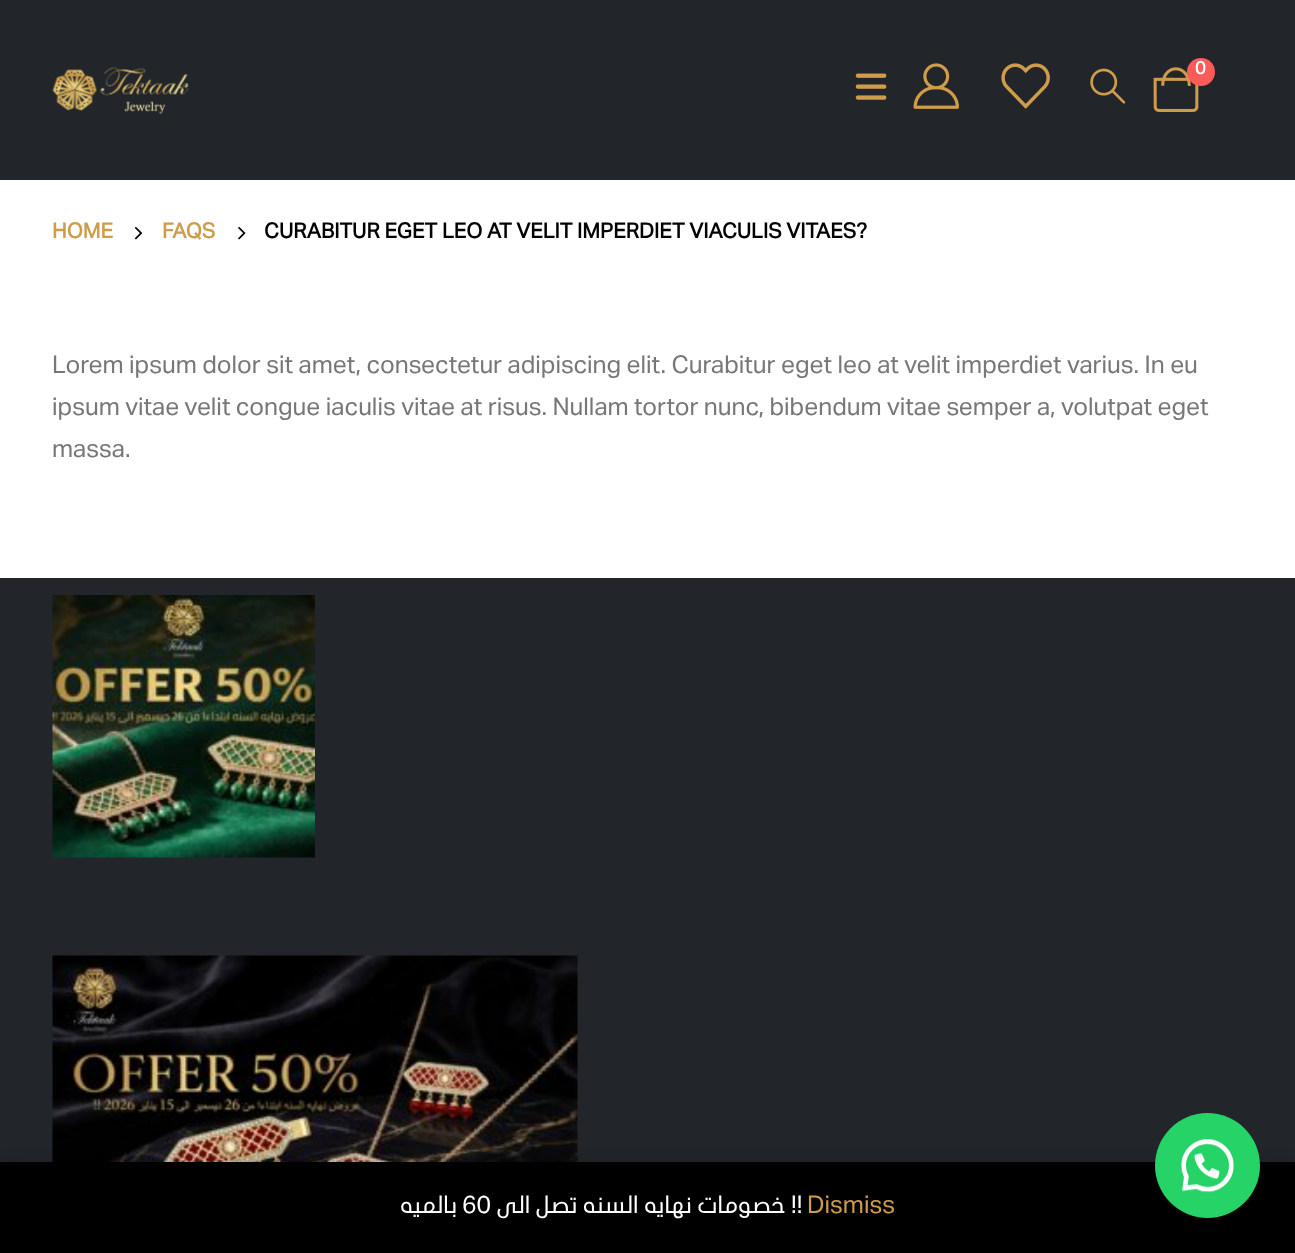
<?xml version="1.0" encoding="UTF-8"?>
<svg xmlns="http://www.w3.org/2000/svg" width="1295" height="1253">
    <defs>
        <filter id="blur1" x="-50%" y="-200%" width="200%" height="500%"><feGaussianBlur stdDeviation="12"/></filter>
    </defs>
    <rect width="100%" height="100%" fill="#FFFFFF"/>
    <rect x="0" y="0" width="1295" height="180" fill="#222529"/>
    <image x="52" y="67" width="138" height="47" href="img_01.png"/>
    <image x="855" y="73" width="32" height="27" href="img_02.png"/>
    <image x="913" y="63" width="46" height="46" href="img_03.png"/>
    <image x="1001" y="63" width="49" height="46" href="img_04.png"/>
    <image x="1090" y="68" width="36" height="36" href="img_05.png"/>
    <image x="1153" y="67" width="46" height="45" href="img_06.png"/>
    <circle cx="1201" cy="72" r="14" fill="#FF5B5B"/>
    <text x="1195" y="74" font-family="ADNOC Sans" font-size="18" font-weight="700" fill="#FFFFFF">0</text>
    <text x="52" y="238" font-family="ADNOC Sans" font-size="21" font-weight="700" fill="#CE9C4B">HOME</text>
    <image x="134" y="226" width="9" height="14" href="img_07.png"/>
    <text x="162" y="238" font-family="ADNOC Sans" font-size="21" font-weight="700" fill="#CE9C4B">FAQS</text>
    <image x="238" y="226" width="8" height="14" href="img_08.png"/>
    <text x="264" y="238" font-family="ADNOC Sans" font-size="21" font-weight="700" fill="#000000">CURABITUR EGET LEO AT VELIT IMPERDIET VIACULIS VITAES?</text>
    <text font-family="ADNOC Sans" font-size="24.5" fill="#777777">
        <tspan x="52" y="373">Lorem ipsum dolor sit amet, consectetur adipiscing elit. Curabitur eget leo at velit imperdiet varius. In eu</tspan>
        <tspan x="52" y="415">ipsum vitae velit congue iaculis vitae at risus. Nullam tortor nunc, bibendum vitae semper a, volutpat eget</tspan>
        <tspan x="52" y="457">massa.</tspan>
    </text>
    <rect x="0" y="578" width="1295" height="584" fill="#222529"/>
    <image x="52" y="595" width="263" height="263" href="img_09.png"/>
    <image x="52" y="955" width="526" height="207" href="img_10.png"/>
    <rect x="0" y="1164" width="1295" height="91" fill="#000000" fill-opacity="0.2" filter="url(#blur1)"/>
    <rect x="0" y="1162" width="1295" height="91" fill="#000000"/>
    <text x="457" y="1213" font-family="ADNOC Sans" font-size="24.5" direction="rtl" fill="#FFFFFF">بالميه</text>
    <text x="462" y="1213" font-family="ADNOC Sans" font-size="24.5" fill="#FFFFFF">60</text>
    <text x="785" y="1213" font-family="ADNOC Sans" font-size="24.5" direction="rtl" fill="#FFFFFF">خصومات نهايه السنه تصل الى</text>
    <text x="791" y="1213" font-family="ADNOC Sans" font-size="24.5" fill="#FFFFFF">!!</text>
    <text x="807" y="1213" font-family="ADNOC Sans" font-size="24.5" fill="#CE9C4B">Dismiss</text>
    <circle cx="1207.5" cy="1165.5" r="52.5" fill="#25D366"/>
    <image x="1181" y="1139" width="53" height="54" href="img_11.png"/>
</svg>
